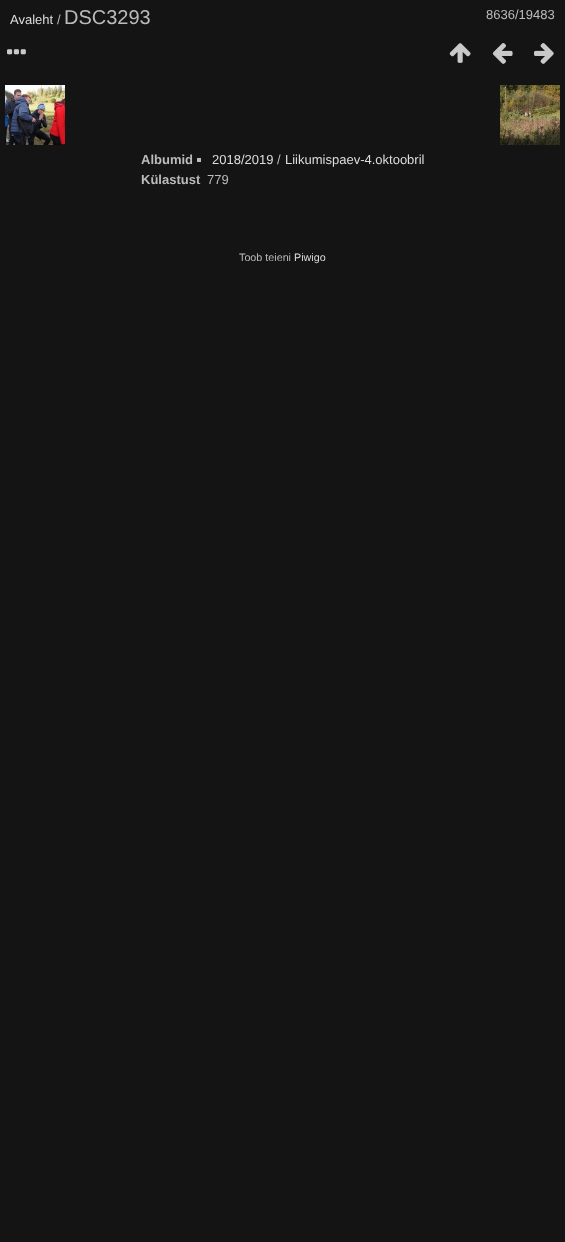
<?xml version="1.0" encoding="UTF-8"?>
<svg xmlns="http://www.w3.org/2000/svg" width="565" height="1242">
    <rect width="100%" height="100%" fill="#141414"/>
    <text x="10" y="24" font-family="Liberation Sans" font-size="13" fill="#DDDDDD">Avaleht</text>
    <text x="57" y="24" font-family="Liberation Sans" font-size="13" fill="#BBBBBB">/</text>
    <text x="64" y="24" font-family="Liberation Sans" font-size="20" fill="#BBBBBB">DSC3293</text>
    <text x="486" y="19" font-family="Liberation Sans" font-size="13" fill="#BBBBBB">8636/19483</text>
    <image x="7" y="49" width="19" height="6" href="img_01.png"/>
    <image x="449" y="43" width="22" height="20" href="img_02.png"/>
    <image x="492" y="43" width="21" height="21" href="img_03.png"/>
    <image x="534" y="43" width="20" height="21" href="img_04.png"/>
    <image x="5" y="85" width="60" height="60" href="img_05.png"/>
    <image x="500" y="85" width="60" height="60" href="img_06.png"/>
    <text x="141" y="164" font-family="Liberation Sans" font-size="13" font-weight="700" fill="#BBBBBB">Albumid</text>
    <rect x="197" y="158" width="4" height="4" fill="#BBBBBB"/>
    <text x="212" y="164" font-family="Liberation Sans" font-size="13" fill="#DDDDDD">2018/2019</text>
    <text x="277" y="164" font-family="Liberation Sans" font-size="13" fill="#BBBBBB">/</text>
    <text x="285" y="164" font-family="Liberation Sans" font-size="13" fill="#DDDDDD">Liikumispaev-4.oktoobril</text>
    <text x="141" y="184" font-family="Liberation Sans" font-size="13" font-weight="700" fill="#BBBBBB">Külastust</text>
    <text x="207" y="184" font-family="Liberation Sans" font-size="13" fill="#BBBBBB">779</text>
    <text x="239" y="261" font-family="Liberation Sans" font-size="10.75" fill="#BBBBBB">Toob teieni</text>
    <text x="294" y="261" font-family="Liberation Sans" font-size="10.75" fill="#DDDDDD">Piwigo</text>
</svg>
